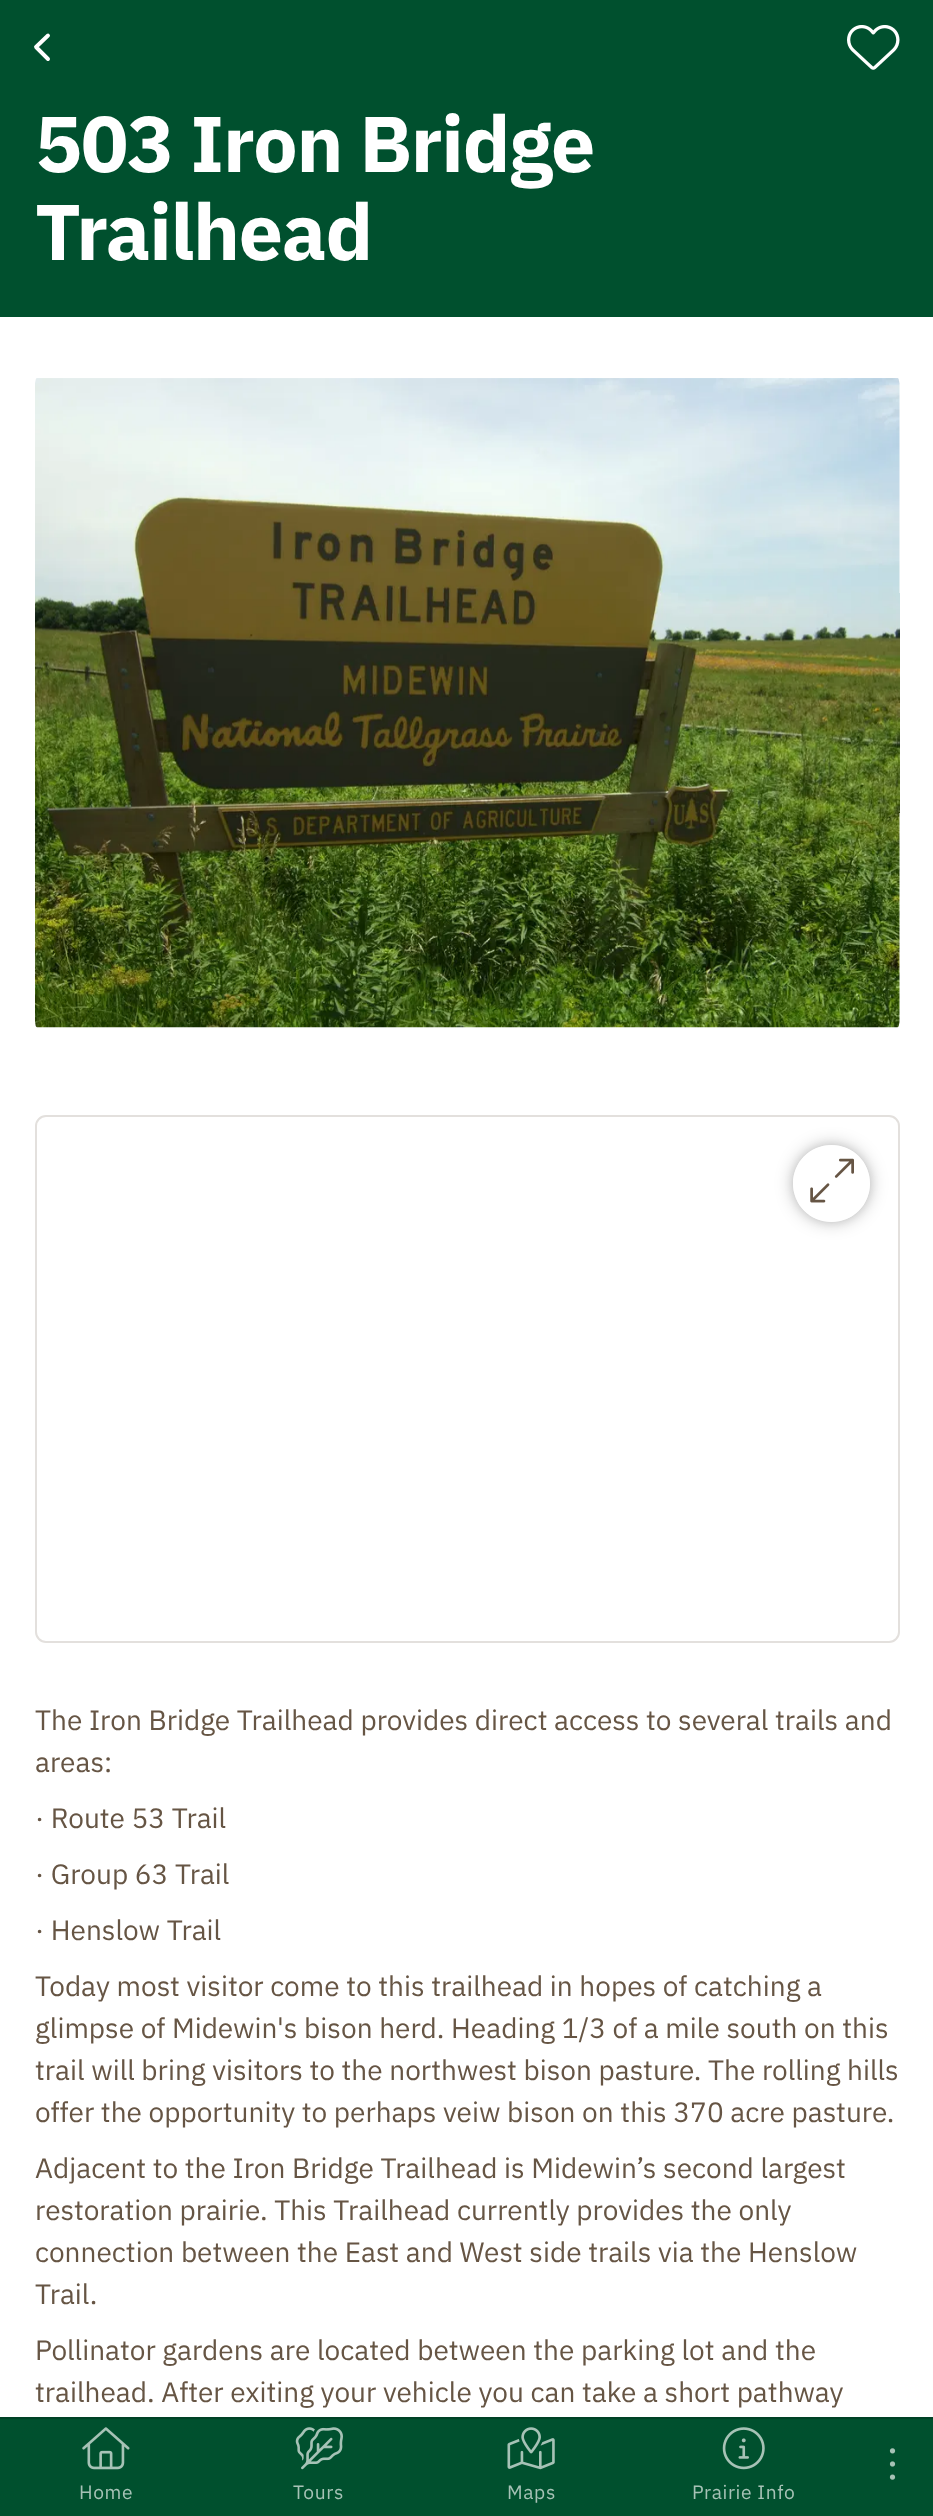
<?xml version="1.0" encoding="UTF-8"?>
<svg xmlns="http://www.w3.org/2000/svg" width="933" height="2516">
    <defs>
        <clipPath id="clip1"><path d="M 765 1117 H 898 V 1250 H 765 Z M 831.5 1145 C 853 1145 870 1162 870 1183.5 C 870 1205 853 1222 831.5 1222 C 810 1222 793 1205 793 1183.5 C 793 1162 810 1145 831.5 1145 Z" clip-rule="evenodd"/></clipPath>
        <filter id="blur1" x="-50%" y="-200%" width="200%" height="500%"><feGaussianBlur stdDeviation="9"/></filter>
        <clipPath id="clip2"><path d="M 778 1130 H 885 V 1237 H 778 Z M 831.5 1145 C 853 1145 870 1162 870 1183.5 C 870 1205 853 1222 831.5 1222 C 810 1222 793 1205 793 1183.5 C 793 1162 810 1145 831.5 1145 Z" clip-rule="evenodd"/></clipPath>
        <filter id="blur2" x="-50%" y="-200%" width="200%" height="500%"><feGaussianBlur stdDeviation="4.5"/></filter>
    </defs>
    <rect width="100%" height="100%" fill="#FFFFFF"/>
    <rect x="0" y="0" width="933" height="317" fill="#00502E"/>
    <path d="M 48 35.5 L 36 47 L 48 59" fill="none" stroke="#FFFFFF" stroke-width="3.9" stroke-linecap="round" stroke-linejoin="round"/>
    <image x="847" y="25" width="53" height="45" href="img_01.png"/>
    <text font-family="IBM Plex Sans" font-size="78.75" font-weight="700" letter-spacing="-1.25" fill="#FFFFFF">
        <tspan x="35" y="172">503 Iron Bridge</tspan>
        <tspan x="35" y="260">Trailhead</tspan>
    </text>
    <image x="35" y="378" width="865" height="650" href="img_02.png"/>
    <rect x="36" y="1116" width="863" height="526" rx="10" fill="none" stroke="#E3E0DD" stroke-width="2"/>
    <g clip-path="url(#clip1)">
        <rect x="793" y="1145" width="77" height="77" rx="38.5" fill="#000000" fill-opacity="0.25" filter="url(#blur1)"/>
    </g>
    <g clip-path="url(#clip2)">
        <rect x="793" y="1145" width="77" height="77" rx="38.5" fill="#000000" fill-opacity="0.1" filter="url(#blur2)"/>
    </g>
    <circle cx="831.5" cy="1183.5" r="38.5" fill="#FFFFFF" fill-opacity="0.8"/>
    <image x="810" y="1158" width="44" height="45" href="img_03.png"/>
    <text font-family="IBM Plex Sans" font-size="28" fill="#665544">
        <tspan x="35" y="1730">The Iron Bridge Trailhead provides direct access to several trails and</tspan>
        <tspan x="35" y="1772">areas:</tspan>
    </text>
    <text x="35" y="1828" font-family="IBM Plex Sans" font-size="28" fill="#665544">· Route 53 Trail</text>
    <text x="35" y="1884" font-family="IBM Plex Sans" font-size="28" fill="#665544">· Group 63 Trail</text>
    <text x="35" y="1940" font-family="IBM Plex Sans" font-size="28" fill="#665544">· Henslow Trail</text>
    <text font-family="IBM Plex Sans" font-size="28" fill="#665544">
        <tspan x="35" y="1996">Today most visitor come to this trailhead in hopes of catching a</tspan>
        <tspan x="35" y="2038">glimpse of Midewin's bison herd. Heading 1/3 of a mile south on this</tspan>
        <tspan x="35" y="2080">trail will bring visitors to the northwest bison pasture. The rolling hills</tspan>
        <tspan x="35" y="2122">offer the opportunity to perhaps veiw bison on this 370 acre pasture.</tspan>
    </text>
    <text font-family="IBM Plex Sans" font-size="28" fill="#665544">
        <tspan x="35" y="2178">Adjacent to the Iron Bridge Trailhead is Midewin’s second largest</tspan>
        <tspan x="35" y="2220">restoration prairie. This Trailhead currently provides the only</tspan>
        <tspan x="35" y="2262">connection between the East and West side trails via the Henslow</tspan>
        <tspan x="35" y="2304">Trail.</tspan>
    </text>
    <text font-family="IBM Plex Sans" font-size="28" fill="#665544">
        <tspan x="35" y="2360">Pollinator gardens are located between the parking lot and the</tspan>
        <tspan x="35" y="2402">trailhead. After exiting your vehicle you can take a short pathway</tspan>
    </text>
    <rect x="0" y="2419" width="933" height="97" fill="#00502E"/>
    <rect x="0" y="2417" width="933" height="2" fill="#004226"/>
    <image x="889" y="2448" width="7" height="32" href="img_04.png"/>
    <image x="82" y="2427" width="48" height="43" href="img_05.png"/>
    <text x="79" y="2499" font-family="IBM Plex Sans" font-size="19.25" letter-spacing="0.6" fill="#A6C2B6">Home</text>
    <image x="295" y="2427" width="48" height="43" href="img_06.png"/>
    <text x="293" y="2499" font-family="IBM Plex Sans" font-size="19.25" letter-spacing="0.6" fill="#A6C2B6">Tours</text>
    <image x="507" y="2427" width="48" height="43" href="img_07.png"/>
    <text x="507" y="2499" font-family="IBM Plex Sans" font-size="19.25" letter-spacing="0.6" fill="#A6C2B6">Maps</text>
    <image x="722" y="2427" width="43" height="43" href="img_08.png"/>
    <text x="692" y="2499" font-family="IBM Plex Sans" font-size="19.25" letter-spacing="0.6" fill="#A6C2B6">Prairie Info</text>
</svg>
